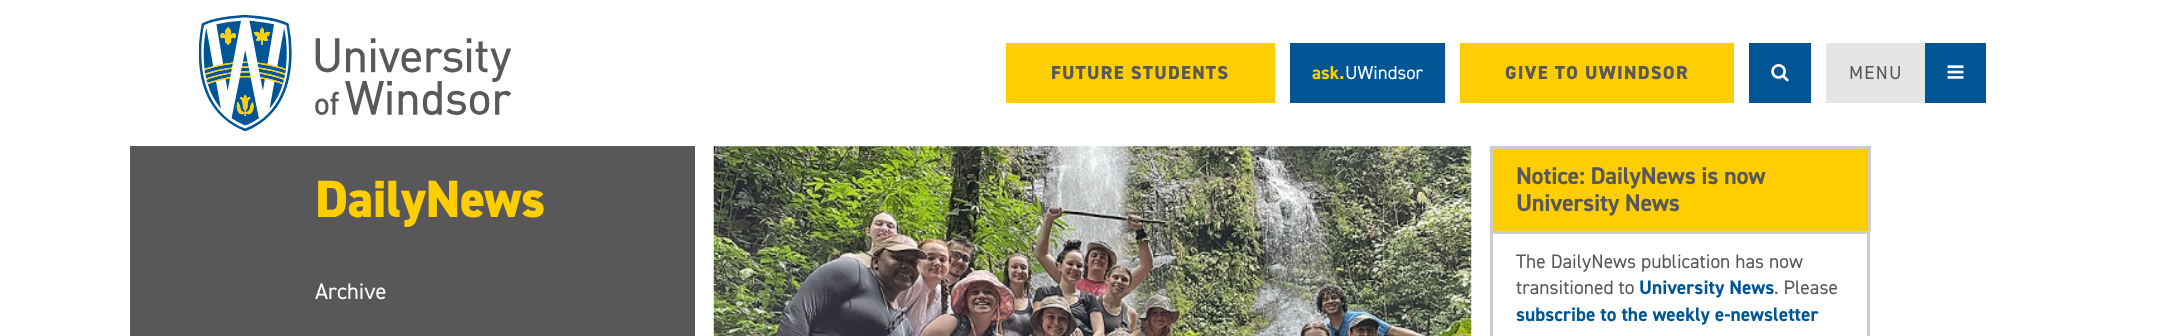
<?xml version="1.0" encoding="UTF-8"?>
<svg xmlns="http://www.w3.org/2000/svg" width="2184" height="336">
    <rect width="100%" height="100%" fill="#FFFFFF"/>
    <image x="199" y="15" width="312" height="116" href="img_01.png"/>
    <rect x="1006" y="43" width="269" height="60" fill="#FFCE00"/>
    <text x="1051" y="79" font-family="'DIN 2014'" font-size="18.75" font-weight="800" letter-spacing="1.25" fill="#58585B">FUTURE STUDENTS</text>
    <rect x="1290" y="43" width="155" height="60" fill="#005595"/>
    <text x="1312" y="79" font-family="'DIN 2014'" font-size="18.75" font-weight="700" fill="#FFCE00">ask.</text>
    <text x="1345" y="79" font-family="'DIN 2014'" font-size="18.75" fill="#FFFFFF">UWindsor</text>
    <rect x="1460" y="43" width="274" height="60" fill="#FFCE00"/>
    <text x="1505" y="79" font-family="'DIN 2014'" font-size="18.75" font-weight="800" letter-spacing="1.25" fill="#58585B">GIVE TO UWINDSOR</text>
    <rect x="1749" y="43" width="62" height="60" fill="#005595"/>
    <image x="1771" y="64" width="18" height="18" href="img_02.png"/>
    <rect x="1826" y="43" width="99" height="60" fill="#E5E5E5"/>
    <text x="1849" y="79" font-family="'DIN 2014'" font-size="18.75" letter-spacing="1.25" fill="#58585B">MENU</text>
    <rect x="1925" y="43" width="61" height="60" fill="#005595"/>
    <image x="1947" y="65" width="17" height="14" href="img_03.png"/>
    <rect x="130" y="146" width="565" height="190" fill="#58585B"/>
    <text x="315" y="217" font-family="'DIN 2014'" font-size="52.5" font-weight="800" letter-spacing="-0.6" fill="#FFCE00">DailyNews</text>
    <text x="315" y="299" font-family="'DIN 2014'" font-size="22.5" fill="#FFFFFF">Archive</text>
    <image x="713" y="146" width="759" height="190" href="img_04.png"/>
    <rect x="1493" y="149" width="375" height="82" fill="#FFCE00"/>
    <rect x="1490" y="146" width="380" height="3" fill="#CCCCCC"/>
    <rect x="1868" y="146" width="3" height="85" fill="#CCCCCC"/>
    <rect x="1490" y="146" width="3" height="85" fill="#CCCCCC"/>
    <text font-family="'DIN 2014'" font-size="24.25" font-weight="700" letter-spacing="-0.3" fill="#58585B">
        <tspan x="1516" y="184">Notice: DailyNews is now</tspan>
        <tspan x="1516" y="211">University News</tspan>
    </text>
    <rect x="1491.5" y="232.5" width="377" height="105" fill="none" stroke="#CCCCCC" stroke-width="3"/>
    <text font-family="'DIN 2014'" font-size="19.5" fill="#58585B">
        <tspan x="1516" y="268">The DailyNews publication has now</tspan>
        <tspan x="1516" y="294">transitioned to</tspan>
    </text>
    <text x="1639" y="294" font-family="'DIN 2014'" font-size="19.5" font-weight="700" fill="#005595">University News</text>
    <text x="1774" y="294" font-family="'DIN 2014'" font-size="19.5" fill="#58585B">. Please</text>
    <text x="1516" y="321" font-family="'DIN 2014'" font-size="19.5" font-weight="700" fill="#005595">subscribe to the weekly e-newsletter</text>
</svg>
